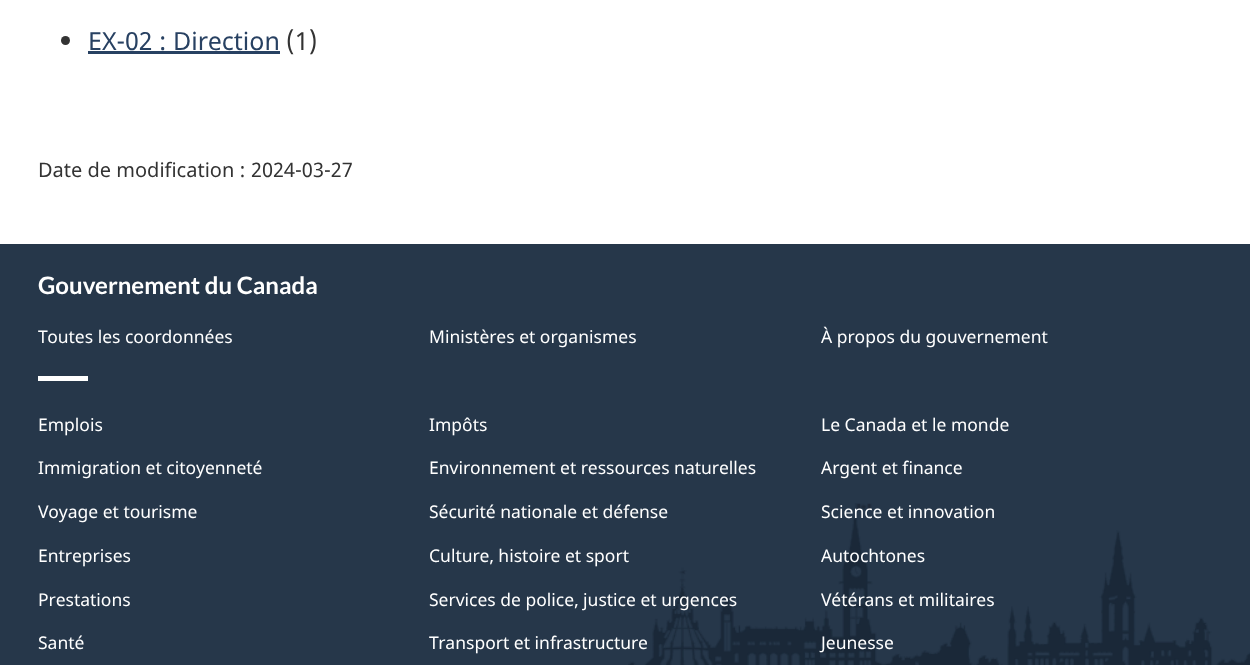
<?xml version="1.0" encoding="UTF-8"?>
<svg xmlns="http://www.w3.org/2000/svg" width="1250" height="665">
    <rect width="100%" height="100%" fill="#FFFFFF"/>
    <circle cx="65.5" cy="40.5" r="4.5" fill="#333333"/>
    <text x="88" y="50" font-family="Noto Sans" font-size="25" fill="#284162">EX-02 : Direction</text>
    <rect x="88" y="51" width="192" height="3" fill="#284162"/>
    <text x="286" y="50" font-family="Noto Sans" font-size="25" fill="#333333">(1)</text>
    <text x="38" y="177" font-family="Noto Sans" font-size="20" fill="#333333">Date de modification :</text>
    <text x="251" y="177" font-family="Noto Sans" font-size="20" fill="#333333">2024-03-27</text>
    <rect x="0" y="244" width="1250" height="421" fill="#26374A"/>
    <image x="628" y="503" width="622" height="162" href="img_01.png"/>
    <text x="38" y="294" font-family="Lato" font-size="24" font-weight="700" fill="#FFFFFF">Gouvernement du Canada</text>
    <text x="38" y="343" font-family="Noto Sans" font-size="17.5" fill="#FFFFFF">Toutes les coordonnées</text>
    <text x="429" y="343" font-family="Noto Sans" font-size="17.5" fill="#FFFFFF">Ministères et organismes</text>
    <text x="821" y="343" font-family="Noto Sans" font-size="17.5" fill="#FFFFFF">À propos du gouvernement</text>
    <rect x="38" y="376" width="50" height="5" fill="#FFFFFF"/>
    <text x="38" y="431" font-family="Noto Sans" font-size="17.5" fill="#FFFFFF">Emplois</text>
    <text x="429" y="431" font-family="Noto Sans" font-size="17.5" fill="#FFFFFF">Impôts</text>
    <text x="821" y="431" font-family="Noto Sans" font-size="17.5" fill="#FFFFFF">Le Canada et le monde</text>
    <text x="38" y="474" font-family="Noto Sans" font-size="17.5" fill="#FFFFFF">Immigration et citoyenneté</text>
    <text x="429" y="474" font-family="Noto Sans" font-size="17.5" fill="#FFFFFF">Environnement et ressources naturelles</text>
    <text x="821" y="474" font-family="Noto Sans" font-size="17.5" fill="#FFFFFF">Argent et finance</text>
    <text x="38" y="518" font-family="Noto Sans" font-size="17.5" fill="#FFFFFF">Voyage et tourisme</text>
    <text x="429" y="518" font-family="Noto Sans" font-size="17.5" fill="#FFFFFF">Sécurité nationale et défense</text>
    <text x="821" y="518" font-family="Noto Sans" font-size="17.5" fill="#FFFFFF">Science et innovation</text>
    <text x="38" y="562" font-family="Noto Sans" font-size="17.5" fill="#FFFFFF">Entreprises</text>
    <text x="429" y="562" font-family="Noto Sans" font-size="17.5" fill="#FFFFFF">Culture, histoire et sport</text>
    <text x="821" y="562" font-family="Noto Sans" font-size="17.5" fill="#FFFFFF">Autochtones</text>
    <text x="38" y="606" font-family="Noto Sans" font-size="17.5" fill="#FFFFFF">Prestations</text>
    <text x="429" y="606" font-family="Noto Sans" font-size="17.5" fill="#FFFFFF">Services de police, justice et urgences</text>
    <text x="821" y="606" font-family="Noto Sans" font-size="17.5" fill="#FFFFFF">Vétérans et militaires</text>
    <text x="38" y="649" font-family="Noto Sans" font-size="17.5" fill="#FFFFFF">Santé</text>
    <text x="429" y="649" font-family="Noto Sans" font-size="17.5" fill="#FFFFFF">Transport et infrastructure</text>
    <text x="821" y="649" font-family="Noto Sans" font-size="17.5" fill="#FFFFFF">Jeunesse</text>
</svg>
